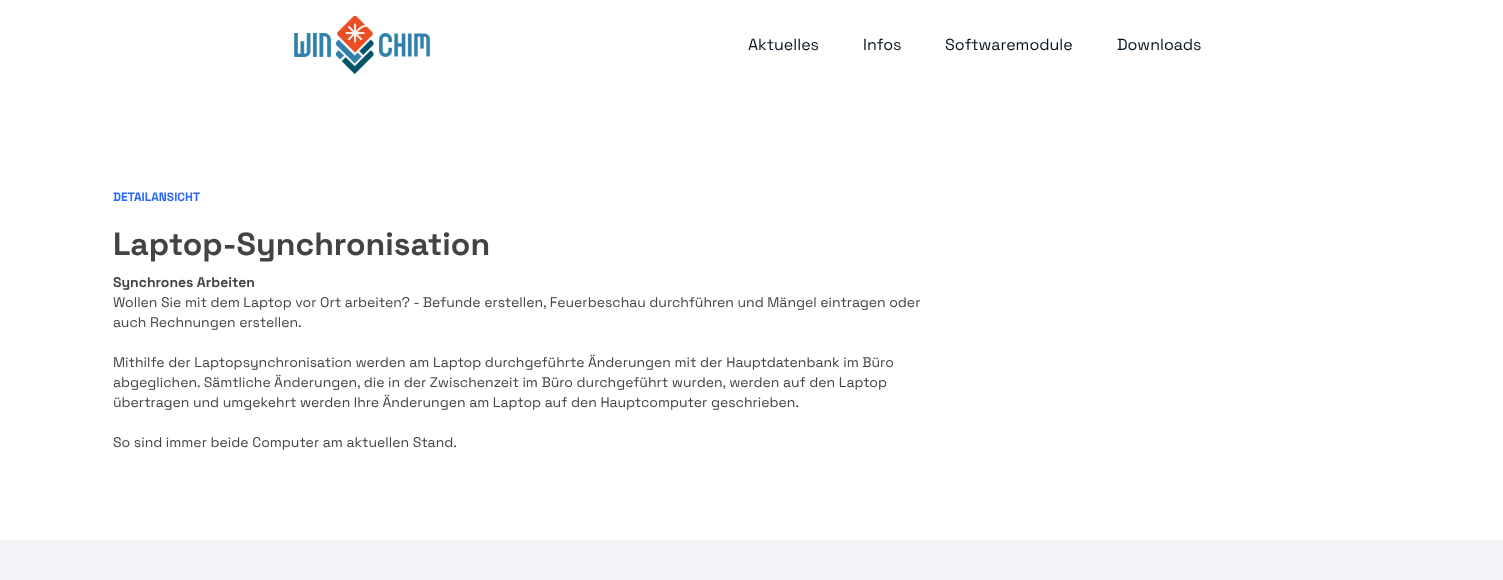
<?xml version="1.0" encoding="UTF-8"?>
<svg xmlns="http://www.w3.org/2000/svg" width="1503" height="580">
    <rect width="100%" height="100%" fill="#FFFFFF"/>
    <image x="293" y="15" width="138" height="60" href="img_01.png"/>
    <text x="748" y="50" font-family="Space Grotesk" font-size="16" fill="#04121F">Aktuelles</text>
    <text x="863" y="50" font-family="Space Grotesk" font-size="16" fill="#04121F">Infos</text>
    <text x="945" y="50" font-family="Space Grotesk" font-size="16" fill="#04121F">Softwaremodule</text>
    <text x="1117" y="50" font-family="Space Grotesk" font-size="16" fill="#04121F">Downloads</text>
    <text x="113" y="201" font-family="Space Grotesk" font-size="12" font-weight="700" fill="#2767FF">DETAILANSICHT</text>
    <text x="113" y="255" font-family="Space Grotesk" font-size="32" font-weight="700" fill="#434343">Laptop-Synchronisation</text>
    <text x="113" y="287" font-family="Space Grotesk" font-size="14" font-weight="700" fill="#434343">Synchrones Arbeiten</text>
    <text font-family="Space Grotesk" font-size="14" fill="#434343">
        <tspan x="113" y="307">Wollen Sie mit dem Laptop vor Ort arbeiten? - Befunde erstellen, Feuerbeschau durchführen und Mängel eintragen oder</tspan>
        <tspan x="113" y="327">auch Rechnungen erstellen.</tspan>
    </text>
    <text font-family="Space Grotesk" font-size="14" fill="#434343">
        <tspan x="113" y="367">Mithilfe der Laptopsynchronisation werden am Laptop durchgeführte Änderungen mit der Hauptdatenbank im Büro</tspan>
        <tspan x="113" y="387">abgeglichen. Sämtliche Änderungen, die in der Zwischenzeit im Büro durchgeführt wurden, werden auf den Laptop</tspan>
        <tspan x="113" y="407">übertragen und umgekehrt werden Ihre Änderungen am Laptop auf den Hauptcomputer geschrieben.</tspan>
    </text>
    <text x="113" y="447" font-family="Space Grotesk" font-size="14" fill="#434343">So sind immer beide Computer am aktuellen Stand.</text>
    <rect x="0" y="540" width="1503" height="40" fill="#F1F3F6"/>
</svg>
